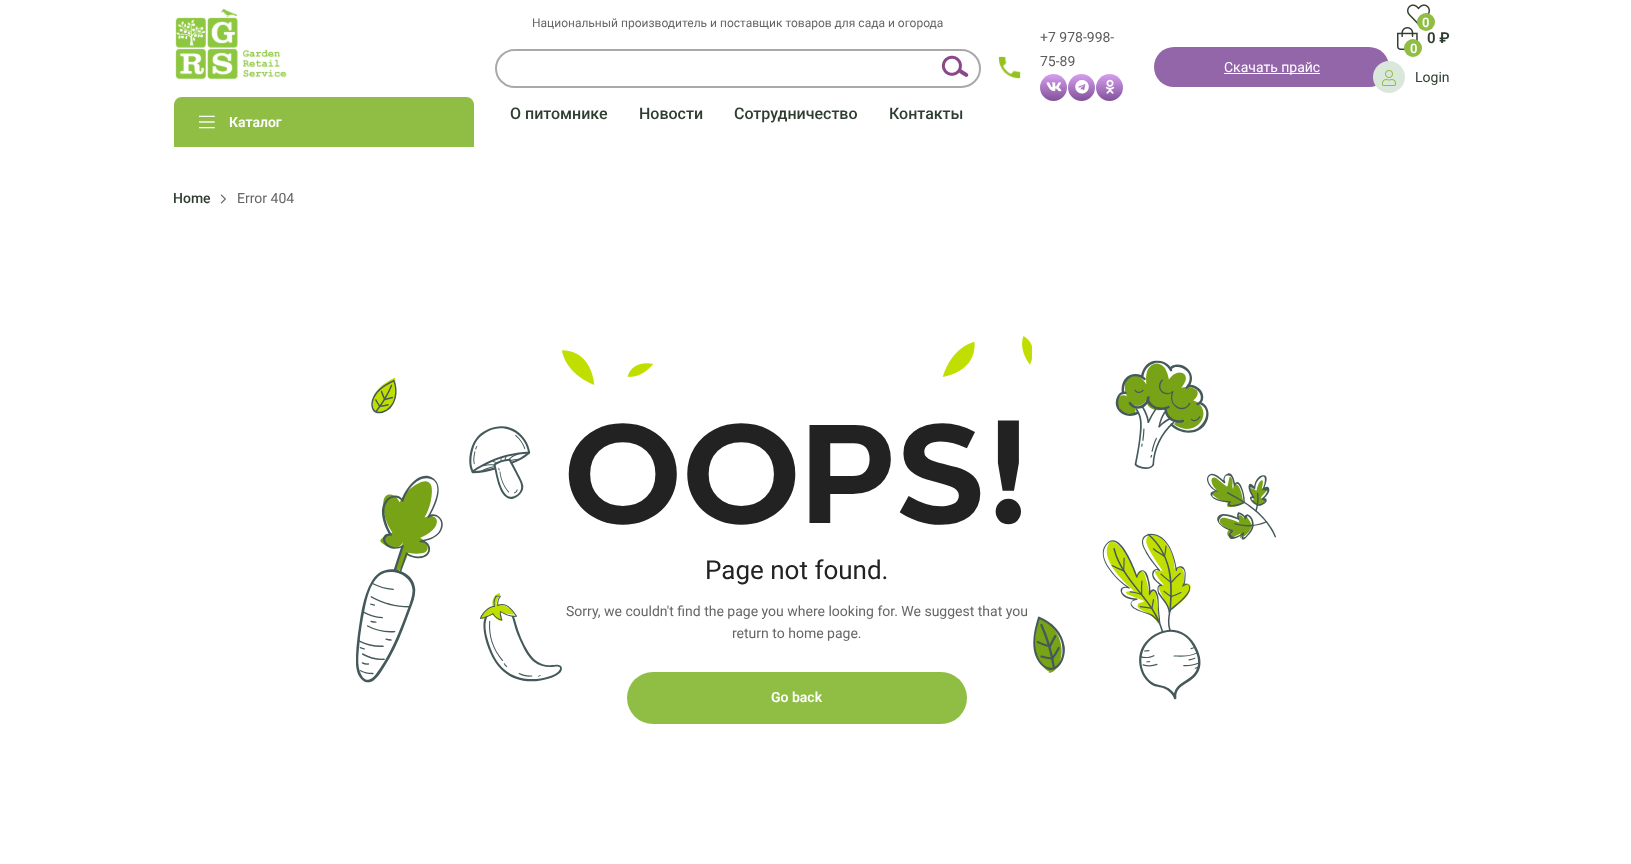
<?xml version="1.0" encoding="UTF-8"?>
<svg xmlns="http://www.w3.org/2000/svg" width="1631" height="864">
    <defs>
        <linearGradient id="g1" gradientUnits="userSpaceOnUse" x1="1054" y1="74" x2="1054" y2="101"><stop offset="0" stop-color="#D59FEF"/><stop offset="1" stop-color="#825199"/></linearGradient>
        <linearGradient id="g2" gradientUnits="userSpaceOnUse" x1="1082" y1="74" x2="1082" y2="101"><stop offset="0" stop-color="#D59FEF"/><stop offset="1" stop-color="#825199"/></linearGradient>
        <linearGradient id="g3" gradientUnits="userSpaceOnUse" x1="1110" y1="74" x2="1110" y2="101"><stop offset="0" stop-color="#D59FEF"/><stop offset="1" stop-color="#825199"/></linearGradient>
    </defs>
    <rect width="100%" height="100%" fill="#FFFFFF"/>
    <image x="175" y="8" width="112" height="72" href="img_01.png"/>
    <text x="532" y="27" font-family="Roboto" font-size="12" fill="#656766">Национальный производитель и поставщик товаров для сада и огорода</text>
    <rect x="496" y="50" width="484" height="37" rx="18.5" fill="none" stroke="#A9A9A9" stroke-width="2"/>
    <image x="941" y="55" width="28" height="22" href="img_02.png"/>
    <image x="998" y="56" width="23" height="23" href="img_03.png"/>
    <text font-family="Roboto" font-size="14" fill="#5C5C5C">
        <tspan x="1040" y="42">+7 978-998-</tspan>
        <tspan x="1040" y="66">75-89</tspan>
    </text>
    <circle cx="1053.5" cy="87.5" r="13.5" fill="url(#g1)"/>
    <image x="1046" y="82" width="16" height="10" href="img_04.png"/>
    <circle cx="1081.5" cy="87.5" r="13.5" fill="url(#g2)"/>
    <image x="1075" y="80" width="14" height="14" href="img_05.png"/>
    <circle cx="1109.5" cy="87.5" r="13.5" fill="url(#g3)"/>
    <image x="1105" y="79" width="10" height="15" href="img_06.png"/>
    <rect x="1154" y="47" width="235" height="40" rx="20" fill="#9365A9"/>
    <rect x="1224" y="73" width="96" height="1" fill="#FFFFFF"/>
    <text x="1224" y="72" font-family="Roboto" font-size="14" fill="#FFFFFF">Скачать прайс</text>
    <image x="1407" y="4" width="23" height="21" href="img_07.png"/>
    <circle cx="1426" cy="22" r="9" fill="#90BE44"/>
    <text x="1422" y="27" font-family="Roboto" font-size="13" font-weight="600" fill="#FFFFFF">0</text>
    <image x="1397" y="27" width="21" height="23" href="img_08.png"/>
    <text x="1427" y="43" font-family="Roboto" font-size="15" font-weight="600" fill="#2F3E30">0 ₽</text>
    <circle cx="1413" cy="48" r="9" fill="#90BE44"/>
    <text x="1410" y="53" font-family="Roboto" font-size="13" font-weight="600" fill="#FFFFFF">0</text>
    <circle cx="1389" cy="77" r="16" fill="#D9E8DB"/>
    <image x="1382" y="70" width="14" height="16" href="img_09.png"/>
    <text x="1415" y="82" font-family="Roboto" font-size="14" fill="#2F3E30">Login</text>
    <path d="M 182 97 H 466 C 470.5 97 474 100.5 474 105 V 147 H 174 V 105 C 174 100.5 177.5 97 182 97 Z" fill="#90BE44"/>
    <image x="199" y="115" width="16" height="14" href="img_10.png"/>
    <text x="229" y="127" font-family="Roboto" font-size="14" font-weight="600" fill="#FFFFFF">Каталог</text>
    <text x="510" y="119" font-family="Roboto" font-size="16" font-weight="500" fill="#2F3E30">О питомнике</text>
    <text x="639" y="119" font-family="Roboto" font-size="16" font-weight="500" fill="#2F3E30">Новости</text>
    <text x="734" y="119" font-family="Roboto" font-size="16" font-weight="500" fill="#2F3E30">Сотрудничество</text>
    <text x="889" y="119" font-family="Roboto" font-size="16" font-weight="500" fill="#2F3E30">Контакты</text>
    <text x="173" y="203" font-family="Roboto" font-size="14" font-weight="500" fill="#2F3E30">Home</text>
    <image x="220" y="194" width="6" height="10" href="img_11.png"/>
    <text x="237" y="203" font-family="Roboto" font-size="14" fill="#656766">Error 404</text>
    <image x="356" y="377" width="206" height="306" href="img_12.png"/>
    <image x="562" y="336" width="470" height="49" href="img_13.png"/>
    <text x="563" y="523" font-family="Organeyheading" font-size="140" font-weight="600" letter-spacing="-1" fill="#222222">OOPS!</text>
    <text x="705" y="579" font-family="Roboto" font-size="26" fill="#222222">Page not found.</text>
    <text x="566" y="616" font-family="Roboto" font-size="14" fill="#656766">Sorry, we couldn't find the page you where looking for. We suggest that you</text>
    <text x="732" y="638" font-family="Roboto" font-size="14" fill="#656766">return to home page.</text>
    <rect x="627" y="672" width="340" height="52" rx="26" fill="#90BE44"/>
    <text x="771" y="702" font-family="Roboto" font-size="14" font-weight="600" fill="#FFFFFF">Go back</text>
    <image x="1033" y="360" width="243" height="340" href="img_14.png"/>
</svg>
